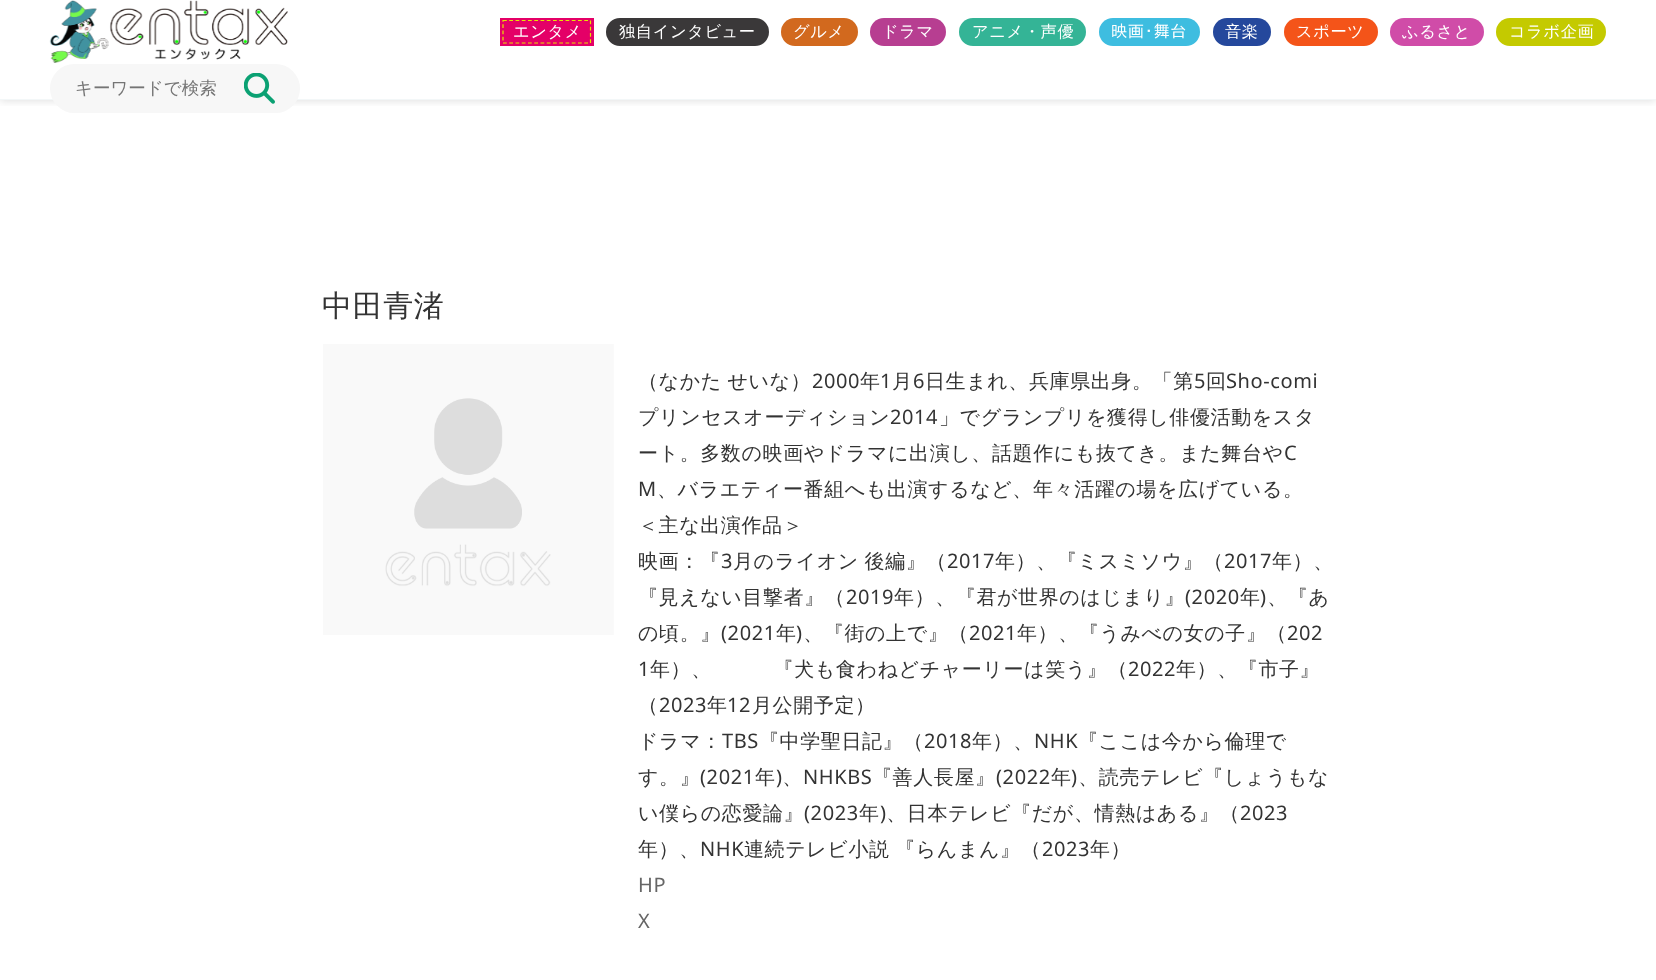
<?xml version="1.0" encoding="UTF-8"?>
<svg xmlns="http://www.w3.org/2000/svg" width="1656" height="980">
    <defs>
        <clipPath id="clip1"><rect x="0" y="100" width="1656" height="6"/></clipPath>
        <filter id="blur1" x="-50%" y="-200%" width="200%" height="500%"><feGaussianBlur stdDeviation="5"/></filter>
    </defs>
    <rect width="100%" height="100%" fill="#FFFFFF"/>
    <g clip-path="url(#clip1)">
        <rect x="0" y="0" width="1656" height="100" fill="#000000" fill-opacity="0.15" filter="url(#blur1)"/>
    </g>
    <rect x="0" y="99" width="1656" height="1" fill="#F3F7F8"/>
    <image x="49" y="0" width="239" height="63" href="img_01.png"/>
    <rect x="500" y="18" width="94" height="28" fill="#E40067"/>
    <text x="513" y="37" font-family="WenQuanYi Zen Hei" font-size="16.25" font-weight="500" letter-spacing="0.6" fill="#FFFFFF">エンタメ</text>
    <path d="M 503 20.5 H 590.5 V 43 H 503 Z" fill="none" stroke="#E5E400" stroke-width="1.2" stroke-dasharray="3.75 2.5"/>
    <rect x="606" y="18" width="163" height="28" rx="14" fill="#3A3839"/>
    <text x="619" y="37" font-family="WenQuanYi Zen Hei" font-size="16.25" font-weight="500" letter-spacing="0.6" fill="#FFFFFF">独自インタビュー</text>
    <rect x="781" y="18" width="77" height="28" rx="14" fill="#D2691E"/>
    <text x="793" y="37" font-family="WenQuanYi Zen Hei" font-size="16.25" font-weight="500" letter-spacing="0.6" fill="#FFFFFF">グルメ</text>
    <rect x="870" y="18" width="76" height="28" rx="14" fill="#B73E91"/>
    <text x="882" y="37" font-family="WenQuanYi Zen Hei" font-size="16.25" font-weight="500" letter-spacing="0.6" fill="#FFFFFF">ドラマ</text>
    <rect x="959" y="18" width="127" height="28" rx="14" fill="#34B496"/>
    <text x="972" y="37" font-family="WenQuanYi Zen Hei" font-size="16.25" font-weight="500" letter-spacing="0.6" fill="#FFFFFF">アニメ・声優</text>
    <rect x="1099" y="18" width="101" height="28" rx="14" fill="#3EBDE0"/>
    <text x="1111" y="37" font-family="IPAPGothic" font-size="16.25" letter-spacing="0.6" fill="#FFFFFF">映画･舞台</text>
    <rect x="1213" y="18" width="58" height="28" rx="14" fill="#25489C"/>
    <text x="1225" y="37" font-family="WenQuanYi Zen Hei" font-size="16.25" font-weight="500" letter-spacing="0.6" fill="#FFFFFF">音楽</text>
    <rect x="1284" y="18" width="94" height="28" rx="14" fill="#F45419"/>
    <text x="1296" y="37" font-family="WenQuanYi Zen Hei" font-size="16.25" font-weight="500" letter-spacing="0.6" fill="#FFFFFF">スポーツ</text>
    <rect x="1390" y="18" width="94" height="28" rx="14" fill="#D04CA8"/>
    <text x="1402" y="37" font-family="WenQuanYi Zen Hei" font-size="16.25" font-weight="500" letter-spacing="0.6" fill="#FFFFFF">ふるさと</text>
    <rect x="1496" y="18" width="110" height="28" rx="14" fill="#C4CA00"/>
    <text x="1509" y="37" font-family="WenQuanYi Zen Hei" font-size="16.25" font-weight="500" letter-spacing="0.6" fill="#FFFFFF">コラボ企画</text>
    <rect x="50" y="64" width="250" height="49" rx="24.5" fill="#F7F7F7"/>
    <text x="75" y="94" font-family="WenQuanYi Zen Hei" font-size="17.5" font-weight="500" fill="#757575">キーワードで検索</text>
    <image x="244" y="73" width="31" height="31" href="img_02.png"/>
    <text x="322" y="316" font-family="WenQuanYi Zen Hei" font-size="30" font-weight="500" letter-spacing="0.6" fill="#333333">中田青渚</text>
    <image x="323" y="344" width="291" height="291" href="img_03.png"/>
    <text x="638" y="388" word-spacing="-1" font-family="WenQuanYi Zen Hei" font-size="20" font-weight="500" letter-spacing="0.6" fill="#333333">（なかた せいな）</text>
    <text x="812" y="388" font-family="Noto Sans" font-size="20" letter-spacing="0.6" fill="#333333">2000</text>
    <text x="860" y="388" font-family="WenQuanYi Zen Hei" font-size="20" font-weight="500" letter-spacing="0.6" fill="#333333">年</text>
    <text x="880" y="388" font-family="Noto Sans" font-size="20" letter-spacing="0.6" fill="#333333">1</text>
    <text x="892" y="388" font-family="WenQuanYi Zen Hei" font-size="20" font-weight="500" letter-spacing="0.6" fill="#333333">月</text>
    <text x="913" y="388" font-family="Noto Sans" font-size="20" letter-spacing="0.6" fill="#333333">6</text>
    <text x="925" y="388" font-family="WenQuanYi Zen Hei" font-size="20" font-weight="500" letter-spacing="0.6" fill="#333333">日生まれ、兵庫県出身。「第</text>
    <text x="1194" y="388" font-family="Noto Sans" font-size="20" letter-spacing="0.6" fill="#333333">5</text>
    <text x="1206" y="388" font-family="WenQuanYi Zen Hei" font-size="20" font-weight="500" letter-spacing="0.6" fill="#333333">回</text>
    <text x="1226" y="388" font-family="Noto Sans" font-size="20" letter-spacing="0.6" fill="#333333">Sho-comi</text>
    <text x="638" y="424" font-family="WenQuanYi Zen Hei" font-size="20" font-weight="500" letter-spacing="0.6" fill="#333333">プリンセスオーディション</text>
    <text x="890" y="424" font-family="Noto Sans" font-size="20" letter-spacing="0.6" fill="#333333">2014</text>
    <text x="939" y="424" font-family="WenQuanYi Zen Hei" font-size="20" font-weight="500" letter-spacing="0.6" fill="#333333">」でグランプリを獲得し俳優活動をスタ</text>
    <text x="638" y="460" font-family="WenQuanYi Zen Hei" font-size="20" font-weight="500" letter-spacing="0.6" fill="#333333">ート。多数の映画やドラマに出演し、話題作にも抜てき。また舞台や</text>
    <text x="1284" y="460" font-family="Noto Sans" font-size="20" letter-spacing="0.6" fill="#333333">C</text>
    <text x="638" y="496" font-family="Noto Sans" font-size="20" letter-spacing="0.6" fill="#333333">M</text>
    <text x="657" y="496" font-family="WenQuanYi Zen Hei" font-size="20" font-weight="500" letter-spacing="0.6" fill="#333333">、バラエティー番組へも出演するなど、年々活躍の場を広げている。</text>
    <text font-family="WenQuanYi Zen Hei" font-size="20" font-weight="500" letter-spacing="0.6" fill="#333333">
        <tspan x="638" y="532">＜主な出演作品＞</tspan>
        <tspan x="638" y="568">映画：『</tspan>
    </text>
    <text x="721" y="568" font-family="Noto Sans" font-size="20" letter-spacing="0.6" fill="#333333">3</text>
    <text x="733" y="568" word-spacing="-1" font-family="WenQuanYi Zen Hei" font-size="20" font-weight="500" letter-spacing="0.6" fill="#333333">月のライオン 後編』（</text>
    <text x="947" y="568" font-family="Noto Sans" font-size="20" letter-spacing="0.6" fill="#333333">2017</text>
    <text x="995" y="568" font-family="WenQuanYi Zen Hei" font-size="20" font-weight="500" letter-spacing="0.6" fill="#333333">年）、『ミスミソウ』（</text>
    <text x="1224" y="568" font-family="Noto Sans" font-size="20" letter-spacing="0.6" fill="#333333">2017</text>
    <text x="1272" y="568" font-family="WenQuanYi Zen Hei" font-size="20" font-weight="500" letter-spacing="0.6" fill="#333333">年）、</text>
    <text x="638" y="604" font-family="WenQuanYi Zen Hei" font-size="20" font-weight="500" letter-spacing="0.6" fill="#333333">『見えない目撃者』（</text>
    <text x="846" y="604" font-family="Noto Sans" font-size="20" letter-spacing="0.6" fill="#333333">2019</text>
    <text x="894" y="604" font-family="WenQuanYi Zen Hei" font-size="20" font-weight="500" letter-spacing="0.6" fill="#333333">年）、『君が世界のはじまり』</text>
    <text x="1185" y="604" font-family="Noto Sans" font-size="20" letter-spacing="0.6" fill="#333333">(2020</text>
    <text x="1240" y="604" font-family="WenQuanYi Zen Hei" font-size="20" font-weight="500" letter-spacing="0.6" fill="#333333">年 、『あ</text>
    <text x="1260" y="604" font-family="Noto Sans" font-size="20" letter-spacing="0.6" fill="#333333">)</text>
    <text x="638" y="640" font-family="WenQuanYi Zen Hei" font-size="20" font-weight="500" letter-spacing="0.6" fill="#333333">の頃。』</text>
    <text x="721" y="640" font-family="Noto Sans" font-size="20" letter-spacing="0.6" fill="#333333">(2021</text>
    <text x="776" y="640" font-family="WenQuanYi Zen Hei" font-size="20" font-weight="500" letter-spacing="0.6" fill="#333333">年 、『街の上で』（</text>
    <text x="1017" y="640" font-family="WenQuanYi Zen Hei" font-size="20" font-weight="500" letter-spacing="0.6" fill="#333333">年）、『うみべの女の子』（</text>
    <text x="796" y="640" font-family="Noto Sans" font-size="20" letter-spacing="0.6" fill="#333333">)</text>
    <text x="969" y="640" font-family="Noto Sans" font-size="20" letter-spacing="0.6" fill="#333333">2021</text>
    <text x="1287" y="640" font-family="Noto Sans" font-size="20" letter-spacing="0.6" fill="#333333">202</text>
    <text x="638" y="676" font-family="Noto Sans" font-size="20" letter-spacing="0.6" fill="#333333">1</text>
    <text x="650" y="676" font-family="WenQuanYi Zen Hei" font-size="20" font-weight="500" letter-spacing="0.6" fill="#333333">年）、　　　『犬も食わねどチャーリーは笑う』（</text>
    <text x="1128" y="676" font-family="Noto Sans" font-size="20" letter-spacing="0.6" fill="#333333">2022</text>
    <text x="1176" y="676" font-family="WenQuanYi Zen Hei" font-size="20" font-weight="500" letter-spacing="0.6" fill="#333333">年）、『市子』</text>
    <text x="638" y="712" font-family="WenQuanYi Zen Hei" font-size="20" font-weight="500" letter-spacing="0.6" fill="#333333">（</text>
    <text x="659" y="712" font-family="Noto Sans" font-size="20" letter-spacing="0.6" fill="#333333">2023</text>
    <text x="707" y="712" font-family="WenQuanYi Zen Hei" font-size="20" font-weight="500" letter-spacing="0.6" fill="#333333">年</text>
    <text x="727" y="712" font-family="Noto Sans" font-size="20" letter-spacing="0.6" fill="#333333">12</text>
    <text x="752" y="712" font-family="WenQuanYi Zen Hei" font-size="20" font-weight="500" letter-spacing="0.6" fill="#333333">月公開予定）</text>
    <text x="638" y="748" font-family="WenQuanYi Zen Hei" font-size="20" font-weight="500" letter-spacing="0.6" fill="#333333">ドラマ：</text>
    <text x="722" y="748" font-family="Noto Sans" font-size="20" letter-spacing="0.6" fill="#333333">TBS</text>
    <text x="759" y="748" font-family="WenQuanYi Zen Hei" font-size="20" font-weight="500" letter-spacing="0.6" fill="#333333">『中学聖日記』（</text>
    <text x="924" y="748" font-family="Noto Sans" font-size="20" letter-spacing="0.6" fill="#333333">2018</text>
    <text x="972" y="748" font-family="WenQuanYi Zen Hei" font-size="20" font-weight="500" letter-spacing="0.6" fill="#333333">年）、</text>
    <text x="1034" y="748" font-family="Noto Sans" font-size="20" letter-spacing="0.6" fill="#333333">NHK</text>
    <text x="1078" y="748" font-family="WenQuanYi Zen Hei" font-size="20" font-weight="500" letter-spacing="0.6" fill="#333333">『ここは今から倫理で</text>
    <text x="638" y="784" font-family="WenQuanYi Zen Hei" font-size="20" font-weight="500" letter-spacing="0.6" fill="#333333">す。』</text>
    <text x="700" y="784" font-family="Noto Sans" font-size="20" letter-spacing="0.6" fill="#333333">(2021</text>
    <text x="755" y="784" font-family="WenQuanYi Zen Hei" font-size="20" font-weight="500" letter-spacing="0.6" fill="#333333">年 、</text>
    <text x="872" y="784" font-family="WenQuanYi Zen Hei" font-size="20" font-weight="500" letter-spacing="0.6" fill="#333333">『善人長屋』</text>
    <text x="1051" y="784" font-family="WenQuanYi Zen Hei" font-size="20" font-weight="500" letter-spacing="0.6" fill="#333333">年 、読売テレビ『しょうもな</text>
    <text x="776" y="784" font-family="Noto Sans" font-size="20" letter-spacing="0.6" fill="#333333">)</text>
    <text x="803" y="784" font-family="Noto Sans" font-size="20" letter-spacing="0.6" fill="#333333">NHKBS</text>
    <text x="996" y="784" font-family="Noto Sans" font-size="20" letter-spacing="0.6" fill="#333333">(2022</text>
    <text x="1071" y="784" font-family="Noto Sans" font-size="20" letter-spacing="0.6" fill="#333333">)</text>
    <text x="638" y="820" font-family="WenQuanYi Zen Hei" font-size="20" font-weight="500" letter-spacing="0.6" fill="#333333">い僕らの恋愛論』</text>
    <text x="804" y="820" font-family="Noto Sans" font-size="20" letter-spacing="0.6" fill="#333333">(2023</text>
    <text x="859" y="820" font-family="WenQuanYi Zen Hei" font-size="20" font-weight="500" letter-spacing="0.6" fill="#333333">年 、日本テレビ『だが、情熱はある』（</text>
    <text x="880" y="820" font-family="Noto Sans" font-size="20" letter-spacing="0.6" fill="#333333">)</text>
    <text x="1240" y="820" font-family="Noto Sans" font-size="20" letter-spacing="0.6" fill="#333333">2023</text>
    <text x="638" y="856" font-family="WenQuanYi Zen Hei" font-size="20" font-weight="500" letter-spacing="0.6" fill="#333333">年）、</text>
    <text x="700" y="856" font-family="Noto Sans" font-size="20" letter-spacing="0.6" fill="#333333">NHK</text>
    <text x="744" y="856" word-spacing="-1" font-family="WenQuanYi Zen Hei" font-size="20" font-weight="500" letter-spacing="0.6" fill="#333333">連続テレビ小説 『らんまん』（</text>
    <text x="1042" y="856" font-family="Noto Sans" font-size="20" letter-spacing="0.6" fill="#333333">2023</text>
    <text x="1090" y="856" font-family="WenQuanYi Zen Hei" font-size="20" font-weight="500" letter-spacing="0.6" fill="#333333">年）</text>
    <text font-family="Noto Sans" font-size="20" letter-spacing="0.6" fill="#666666">
        <tspan x="638" y="892">HP</tspan>
        <tspan x="638" y="928">X</tspan>
    </text>
</svg>
